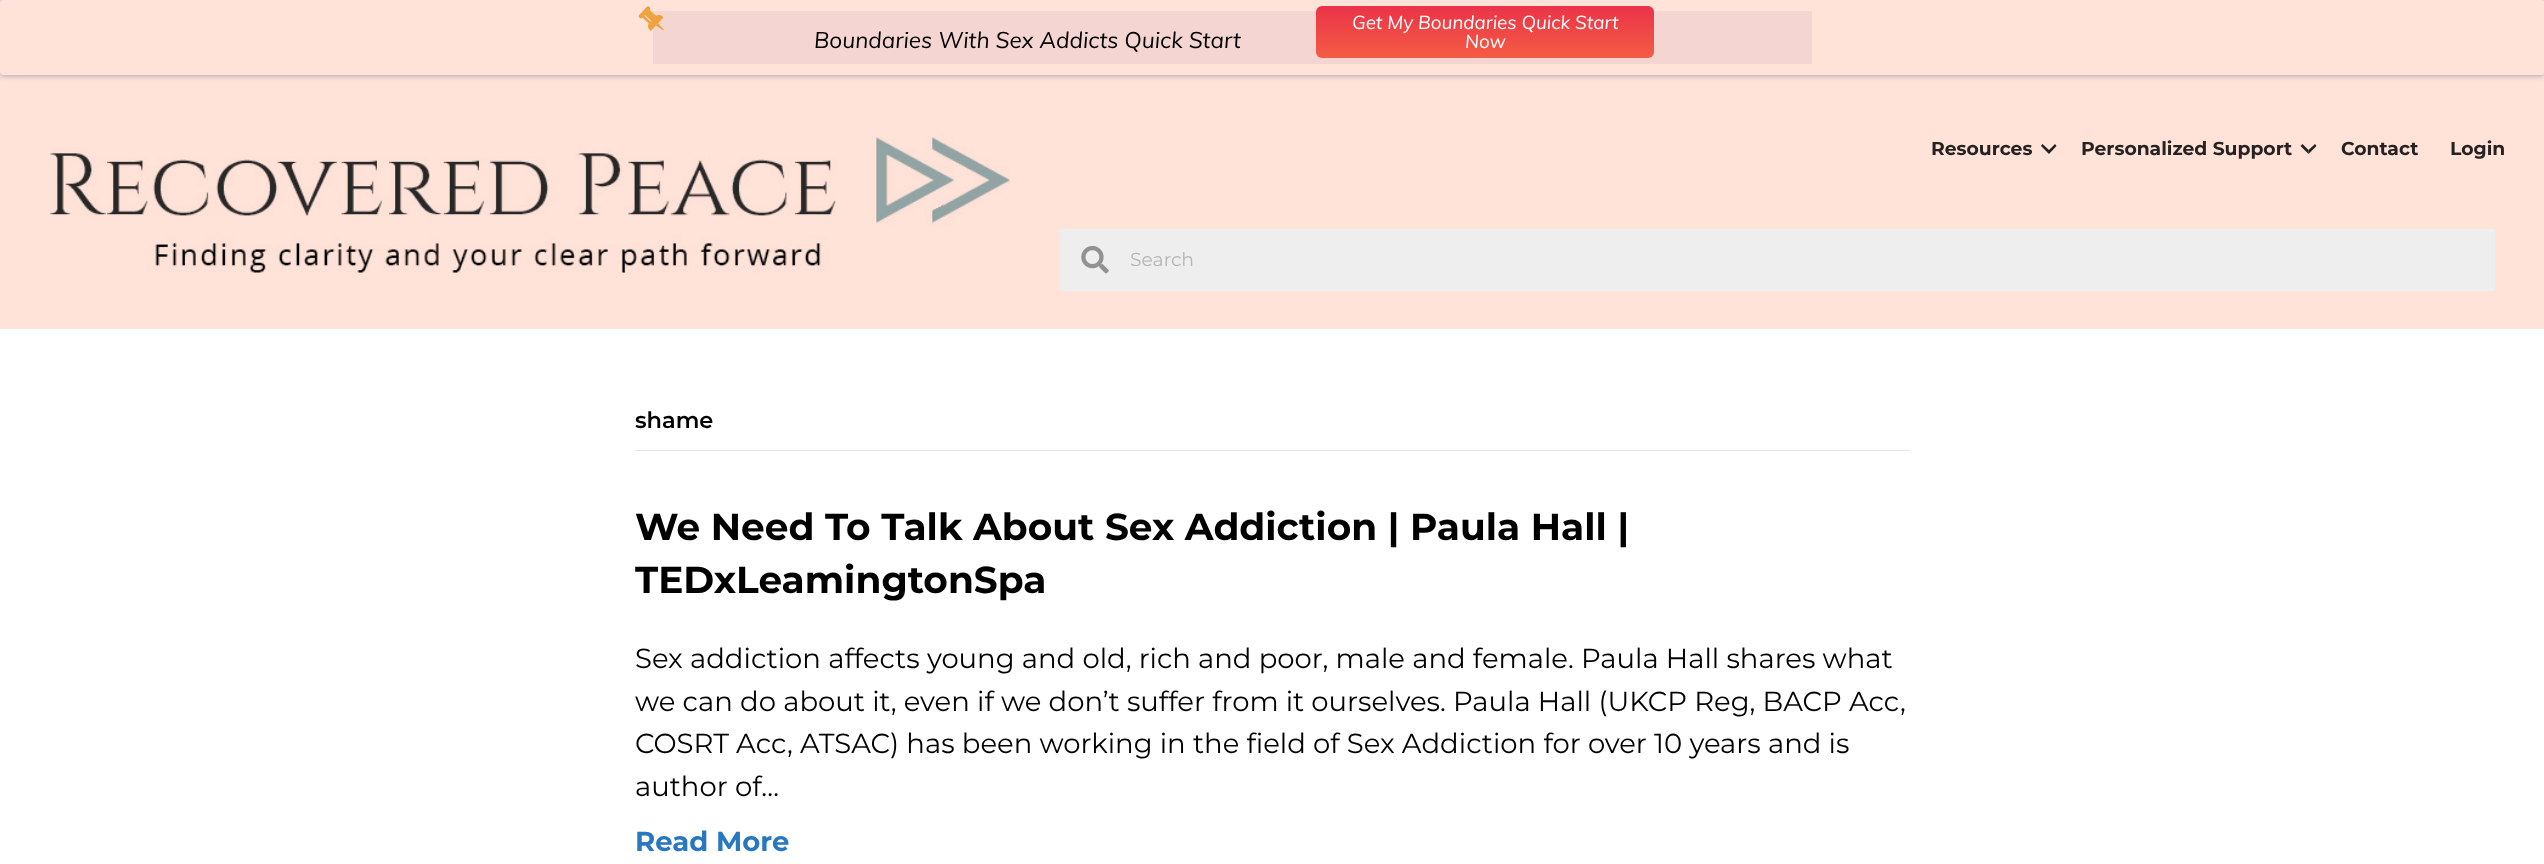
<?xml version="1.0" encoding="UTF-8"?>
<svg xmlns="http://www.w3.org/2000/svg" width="2544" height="864">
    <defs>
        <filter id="blur1" x="-50%" y="-200%" width="200%" height="500%"><feGaussianBlur stdDeviation="3"/></filter>
        <linearGradient id="g1" gradientUnits="userSpaceOnUse" x1="1485" y1="6.2" x2="1485" y2="58"><stop offset="0" stop-color="#EB3349"/><stop offset="1" stop-color="#F45C43"/></linearGradient>
    </defs>
    <rect width="100%" height="100%" fill="#F2F2F2"/>
    <rect x="0" y="75" width="2544" height="254" fill="#FFE2D8"/>
    <rect x="0" y="0" width="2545" height="75" rx="4" fill="#565683" fill-opacity="0.6" filter="url(#blur1)"/>
    <rect x="0" y="0" width="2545" height="75" rx="4" fill="#FFE2D8"/>
    <rect x="653" y="11" width="1159" height="53" fill="#F5D5D1"/>
    <image x="638" y="6" width="26" height="25" href="img_01.png"/>
    <text x="814" y="48" font-family="Muli" font-size="22.5" font-style="italic" fill="#000000">Boundaries With Sex Addicts Quick Start</text>
    <rect x="1316" y="6" width="338" height="52" rx="6" fill="url(#g1)"/>
    <text x="1352" y="29" font-family="Muli" font-size="18.75" font-style="italic" fill="#FFFFFF">Get My Boundaries Quick Start</text>
    <text x="1465" y="48" font-family="Muli" font-size="18.75" font-style="italic" fill="#FFFFFF">Now</text>
    <image x="50" y="137" width="960" height="136" href="img_02.png"/>
    <text x="1931" y="155" font-family="Montserrat" font-size="18.75" font-weight="700" fill="#252221">Resources</text>
    <path d="M 2056.5 146 L 2049 154 V 150 L 2055 144 Z M 2049 154 L 2041 146 L 2042.5 144 L 2049 150 Z" fill="#252221"/>
    <text x="2081" y="155" font-family="Montserrat" font-size="18.75" font-weight="700" fill="#252221">Personalized Support</text>
    <path d="M 2316.5 146 L 2308.5 154 V 150 L 2315 144 Z" fill="#252221"/>
    <path d="M 2308.5 154 L 2300.5 146 L 2302.5 144 L 2308.5 150 Z" fill="#0F0F0F" fill-opacity="0.91"/>
    <text x="2341" y="155" font-family="Montserrat" font-size="18.75" font-weight="700" fill="#252221">Contact</text>
    <text x="2450" y="155" font-family="Montserrat" font-size="18.75" font-weight="700" fill="#252221">Login</text>
    <rect x="1060" y="229" width="1435" height="62" fill="#EEEEEE"/>
    <image x="1081" y="245" width="28" height="29" href="img_03.png"/>
    <text x="1130" y="266" font-family="Montserrat" font-size="18.75" fill="#B5B5B5">Search</text>
    <rect x="0" y="329" width="2544" height="535" fill="#FFFFFF"/>
    <rect x="635" y="450" width="1275" height="1" fill="#E6E6E6"/>
    <text x="635" y="428" font-family="Montserrat" font-size="22.5" font-weight="600" fill="#000000">shame</text>
    <text font-family="Montserrat" font-size="37.5" font-weight="700" fill="#000000">
        <tspan x="635" y="540">We Need To Talk About Sex Addiction | Paula Hall |</tspan>
        <tspan x="635" y="593">TEDxLeamingtonSpa</tspan>
    </text>
    <text font-family="Montserrat" font-size="27.5" fill="#000000">
        <tspan x="635" y="668">Sex addiction affects young and old, rich and poor, male and female. Paula Hall shares what</tspan>
        <tspan x="635" y="711">we can do about it, even if we don’t suffer from it ourselves. Paula Hall (UKCP Reg, BACP Acc,</tspan>
        <tspan x="635" y="753">COSRT Acc, ATSAC) has been working in the field of Sex Addiction for over 10 years and is</tspan>
        <tspan x="635" y="796">author of…</tspan>
    </text>
    <text x="635" y="851" font-family="Montserrat" font-size="27.5" font-weight="700" fill="#2878BF">Read More</text>
</svg>
